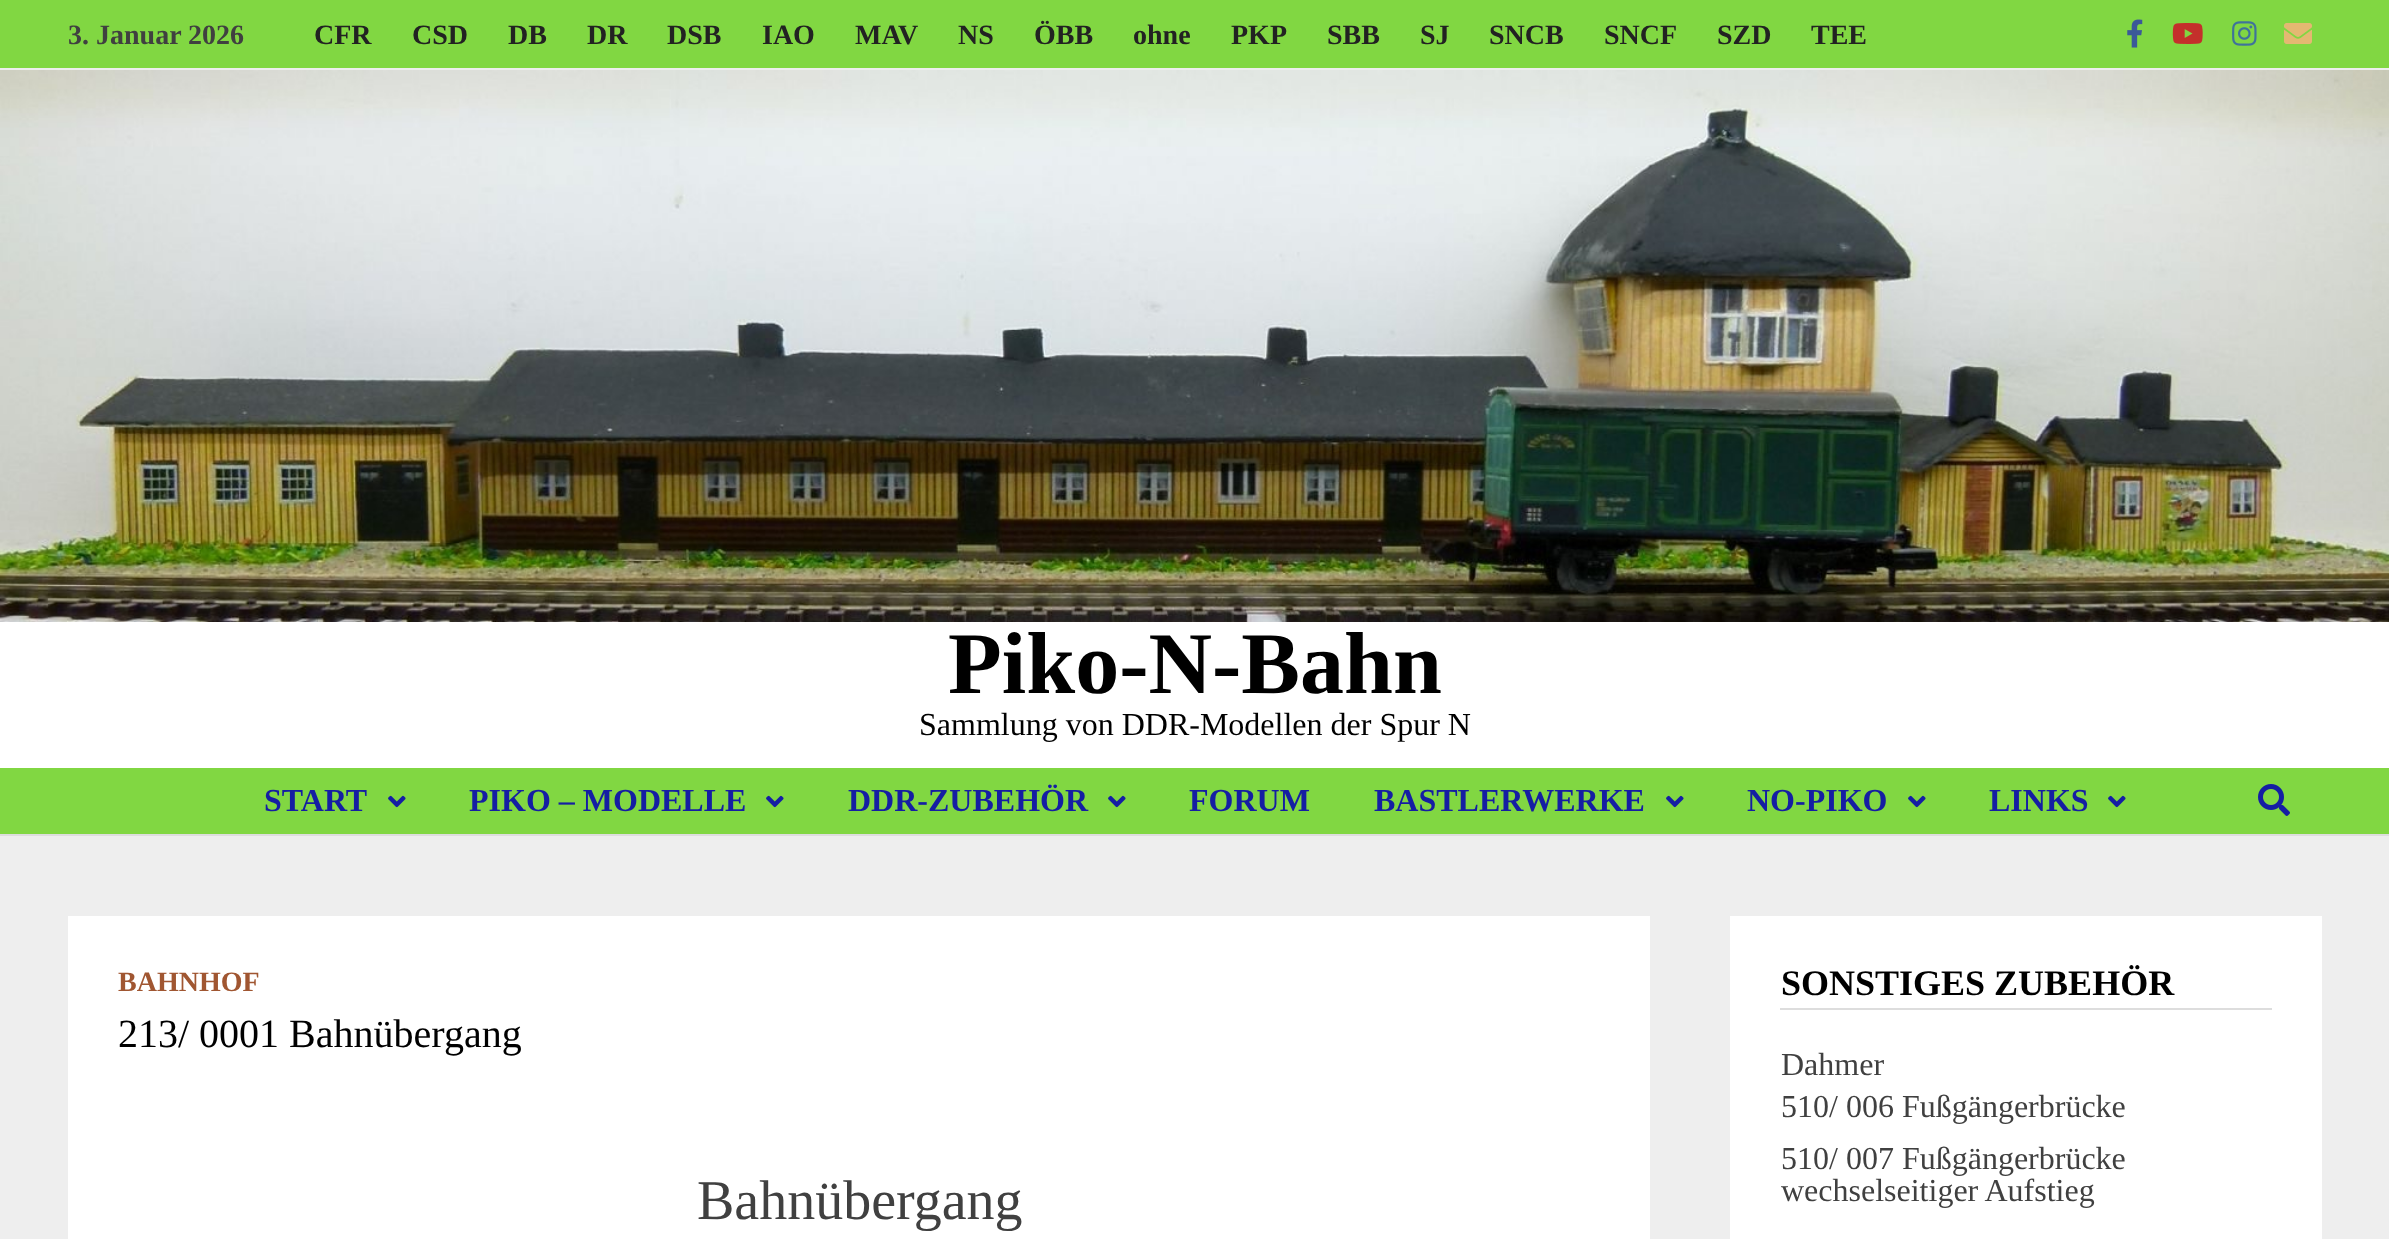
<?xml version="1.0" encoding="UTF-8"?>
<svg xmlns="http://www.w3.org/2000/svg" width="2389" height="1239">
    <rect width="100%" height="100%" fill="#FFFFFF"/>
    <rect x="0" y="0" width="2389" height="68" fill="#81D742"/>
    <rect x="0" y="68" width="2389" height="2" fill="#EEEEEE"/>
    <text x="68" y="44" font-family="Liberation Serif" font-size="28" font-weight="700" fill="#404040">3. Januar 2026</text>
    <text x="314" y="44" font-family="Liberation Serif" font-size="28" font-weight="700" fill="#222222">CFR</text>
    <text x="412" y="44" font-family="Liberation Serif" font-size="28" font-weight="700" fill="#222222">CSD</text>
    <text x="508" y="44" font-family="Liberation Serif" font-size="28" font-weight="700" fill="#222222">DB</text>
    <text x="587" y="44" font-family="Liberation Serif" font-size="28" font-weight="700" fill="#222222">DR</text>
    <text x="667" y="44" font-family="Liberation Serif" font-size="28" font-weight="700" fill="#222222">DSB</text>
    <text x="762" y="44" font-family="Liberation Serif" font-size="28" font-weight="700" fill="#222222">IAO</text>
    <text x="855" y="44" font-family="Liberation Serif" font-size="28" font-weight="700" fill="#222222">MAV</text>
    <text x="958" y="44" font-family="Liberation Serif" font-size="28" font-weight="700" fill="#222222">NS</text>
    <text x="1034" y="44" font-family="Liberation Serif" font-size="28" font-weight="700" fill="#222222">ÖBB</text>
    <text x="1133" y="44" font-family="Liberation Serif" font-size="28" font-weight="700" fill="#222222">ohne</text>
    <text x="1231" y="44" font-family="Liberation Serif" font-size="28" font-weight="700" fill="#222222">PKP</text>
    <text x="1327" y="44" font-family="Liberation Serif" font-size="28" font-weight="700" fill="#222222">SBB</text>
    <text x="1420" y="44" font-family="Liberation Serif" font-size="28" font-weight="700" fill="#222222">SJ</text>
    <text x="1489" y="44" font-family="Liberation Serif" font-size="28" font-weight="700" fill="#222222">SNCB</text>
    <text x="1604" y="44" font-family="Liberation Serif" font-size="28" font-weight="700" fill="#222222">SNCF</text>
    <text x="1717" y="44" font-family="Liberation Serif" font-size="28" font-weight="700" fill="#222222">SZD</text>
    <text x="1811" y="44" font-family="Liberation Serif" font-size="28" font-weight="700" fill="#222222">TEE</text>
    <image x="2127" y="19" width="16" height="29" href="img_01.png"/>
    <image x="2172" y="23" width="31" height="21" href="img_02.png"/>
    <image x="2232" y="21" width="25" height="25" href="img_03.png"/>
    <image x="2284" y="23" width="28" height="21" href="img_04.png"/>
    <rect x="0" y="834" width="2389" height="2" fill="#DDDDDD"/>
    <image x="0" y="70" width="2389" height="552" href="img_05.png"/>
    <text x="948" y="693" font-family="Liberation Serif" font-size="88" font-weight="700" fill="#000000">Piko-N-Bahn</text>
    <text x="919" y="735" font-family="Liberation Serif" font-size="32" fill="#000000">Sammlung von DDR-Modellen der Spur N</text>
    <rect x="0" y="768" width="2389" height="66" fill="#81D742"/>
    <text x="264" y="811" font-family="Liberation Serif" font-size="32" font-weight="700" fill="#151EA3">START</text>
    <image x="388" y="795" width="18" height="13" href="img_06.png"/>
    <text x="469" y="811" font-family="Liberation Serif" font-size="32" font-weight="700" fill="#151EA3">PIKO – MODELLE</text>
    <image x="766" y="795" width="18" height="13" href="img_06.png"/>
    <text x="848" y="811" font-family="Liberation Serif" font-size="32" font-weight="700" fill="#151EA3">DDR-ZUBEHÖR</text>
    <image x="1108" y="795" width="18" height="13" href="img_06.png"/>
    <text x="1189" y="811" font-family="Liberation Serif" font-size="32" font-weight="700" fill="#151EA3">FORUM</text>
    <text x="1374" y="811" font-family="Liberation Serif" font-size="32" font-weight="700" fill="#151EA3">BASTLERWERKE</text>
    <image x="1666" y="795" width="18" height="13" href="img_06.png"/>
    <text x="1747" y="811" font-family="Liberation Serif" font-size="32" font-weight="700" fill="#151EA3">NO-PIKO</text>
    <image x="1908" y="795" width="18" height="13" href="img_06.png"/>
    <text x="1989" y="811" font-family="Liberation Serif" font-size="32" font-weight="700" fill="#151EA3">LINKS</text>
    <image x="2108" y="795" width="18" height="13" href="img_06.png"/>
    <image x="2258" y="784" width="32" height="32" href="img_07.png"/>
    <rect x="0" y="836" width="2389" height="403" fill="#EEEEEE"/>
    <rect x="68" y="916" width="1582" height="323" fill="#FFFFFF"/>
    <text x="118" y="991" font-family="Liberation Serif" font-size="28" font-weight="700" fill="#A05631">BAHNHOF</text>
    <text x="118" y="1047" font-family="Liberation Serif" font-size="40" fill="#000000">213/ 0001 Bahnübergang</text>
    <text x="697" y="1219" font-family="Liberation Serif" font-size="56" fill="#404040">Bahnübergang</text>
    <rect x="1730" y="916" width="592" height="323" fill="#FFFFFF"/>
    <rect x="1780" y="1008" width="492" height="2" fill="#DDDDDD"/>
    <text x="1781" y="995" font-family="Liberation Serif" font-size="36" font-weight="700" fill="#000000">SONSTIGES ZUBEHÖR</text>
    <text font-family="Liberation Serif" font-size="32" fill="#404040">
        <tspan x="1781" y="1075">Dahmer</tspan>
        <tspan x="1781" y="1117">510/ 006 Fußgängerbrücke</tspan>
        <tspan x="1781" y="1169">510/ 007 Fußgängerbrücke</tspan>
        <tspan x="1781" y="1201">wechselseitiger Aufstieg</tspan>
    </text>
</svg>
